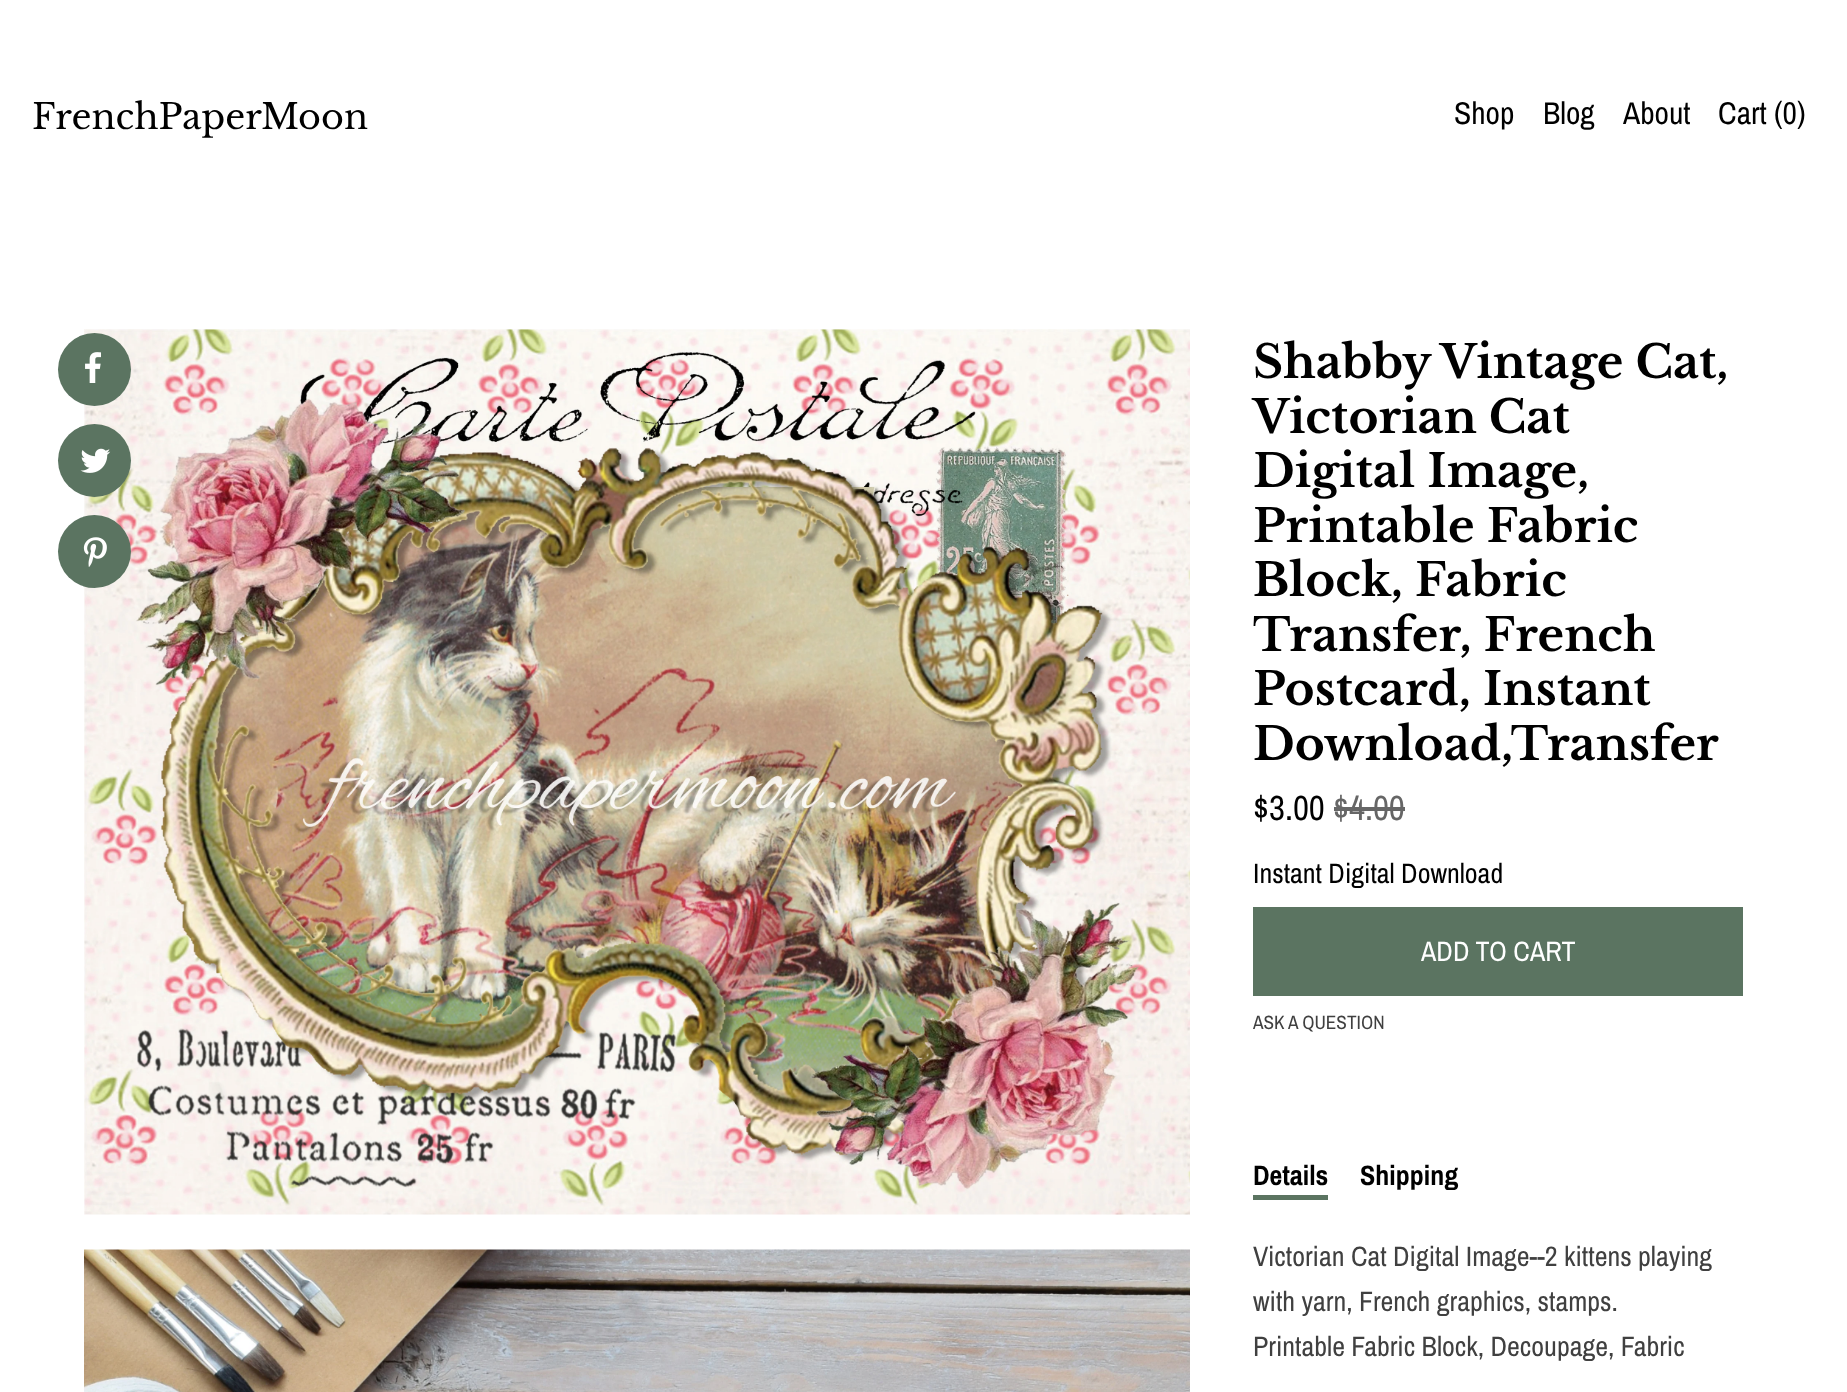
<?xml version="1.0" encoding="UTF-8"?>
<svg xmlns="http://www.w3.org/2000/svg" width="1847" height="1392">
    <rect width="100%" height="100%" fill="#FFFFFF"/>
    <text x="32" y="129" font-family="Libre Baskerville" font-size="35" fill="#000000">FrenchPaperMoon</text>
    <text x="1454" y="124" font-family="Archivo Narrow" font-size="31.5" fill="#000000">Shop</text>
    <text x="1543" y="124" font-family="Archivo Narrow" font-size="31.5" fill="#000000">Blog</text>
    <text x="1623" y="124" font-family="Archivo Narrow" font-size="31.5" fill="#000000">About</text>
    <text x="1718" y="124" font-family="Archivo Narrow" font-size="31.5" fill="#000000">Cart (0)</text>
    <image x="84" y="329" width="1106" height="886" href="img_01.png"/>
    <image x="84" y="1249" width="1106" height="143" href="img_02.png"/>
    <circle cx="94.5" cy="369.5" r="36.5" fill="#5B7461"/>
    <rect x="85" y="352" width="17" height="31" fill="#FFFFFF"/>
    <image x="79" y="350" width="26" height="33" href="img_03.png"/>
    <circle cx="94.5" cy="460.5" r="36.5" fill="#5B7461"/>
    <image x="80" y="448" width="31" height="25" href="img_04.png"/>
    <circle cx="94.5" cy="551.5" r="36.5" fill="#5B7461"/>
    <image x="83" y="537" width="24" height="30" href="img_05.png"/>
    <text font-family="Libre Baskerville" font-size="45.5" font-weight="700" fill="#000000">
        <tspan x="1253" y="378">Shabby Vintage Cat,</tspan>
        <tspan x="1253" y="433">Victorian Cat</tspan>
        <tspan x="1253" y="487">Digital Image,</tspan>
        <tspan x="1253" y="542">Printable Fabric</tspan>
        <tspan x="1253" y="596">Block, Fabric</tspan>
        <tspan x="1253" y="651">Transfer, French</tspan>
        <tspan x="1253" y="705">Postcard, Instant</tspan>
        <tspan x="1253" y="760">Download,Transfer</tspan>
    </text>
    <text x="1253" y="820" font-family="Archivo Narrow" font-size="35" fill="#000000">$3.00</text>
    <text x="1333" y="820" font-family="Archivo Narrow" font-size="35" fill="#666666">$4.00</text>
    <rect x="1334" y="807" width="71" height="4" fill="#666666"/>
    <text x="1253" y="883" font-family="Archivo Narrow" font-size="28" fill="#000000">Instant Digital Download</text>
    <rect x="1253" y="907" width="490" height="89" fill="#5B7461"/>
    <text x="1421" y="961" font-family="Archivo Narrow" font-size="28" fill="#FFFFFF">ADD TO CART</text>
    <text x="1253" y="1029" font-family="Archivo Narrow" font-size="19.25" fill="#404040">ASK A QUESTION</text>
    <rect x="1253" y="1195" width="75" height="5" fill="#5B7461"/>
    <text x="1253" y="1185" font-family="Archivo Narrow" font-size="28" font-weight="700" fill="#000000">Details</text>
    <text x="1360" y="1185" font-family="Archivo Narrow" font-size="28" font-weight="700" fill="#000000">Shipping</text>
    <text font-family="Archivo Narrow" font-size="28" fill="#404040">
        <tspan x="1253" y="1266">Victorian Cat Digital Image--2 kittens playing</tspan>
        <tspan x="1253" y="1311">with yarn, French graphics, stamps.</tspan>
        <tspan x="1253" y="1356">Printable Fabric Block, Decoupage, Fabric</tspan>
    </text>
</svg>
